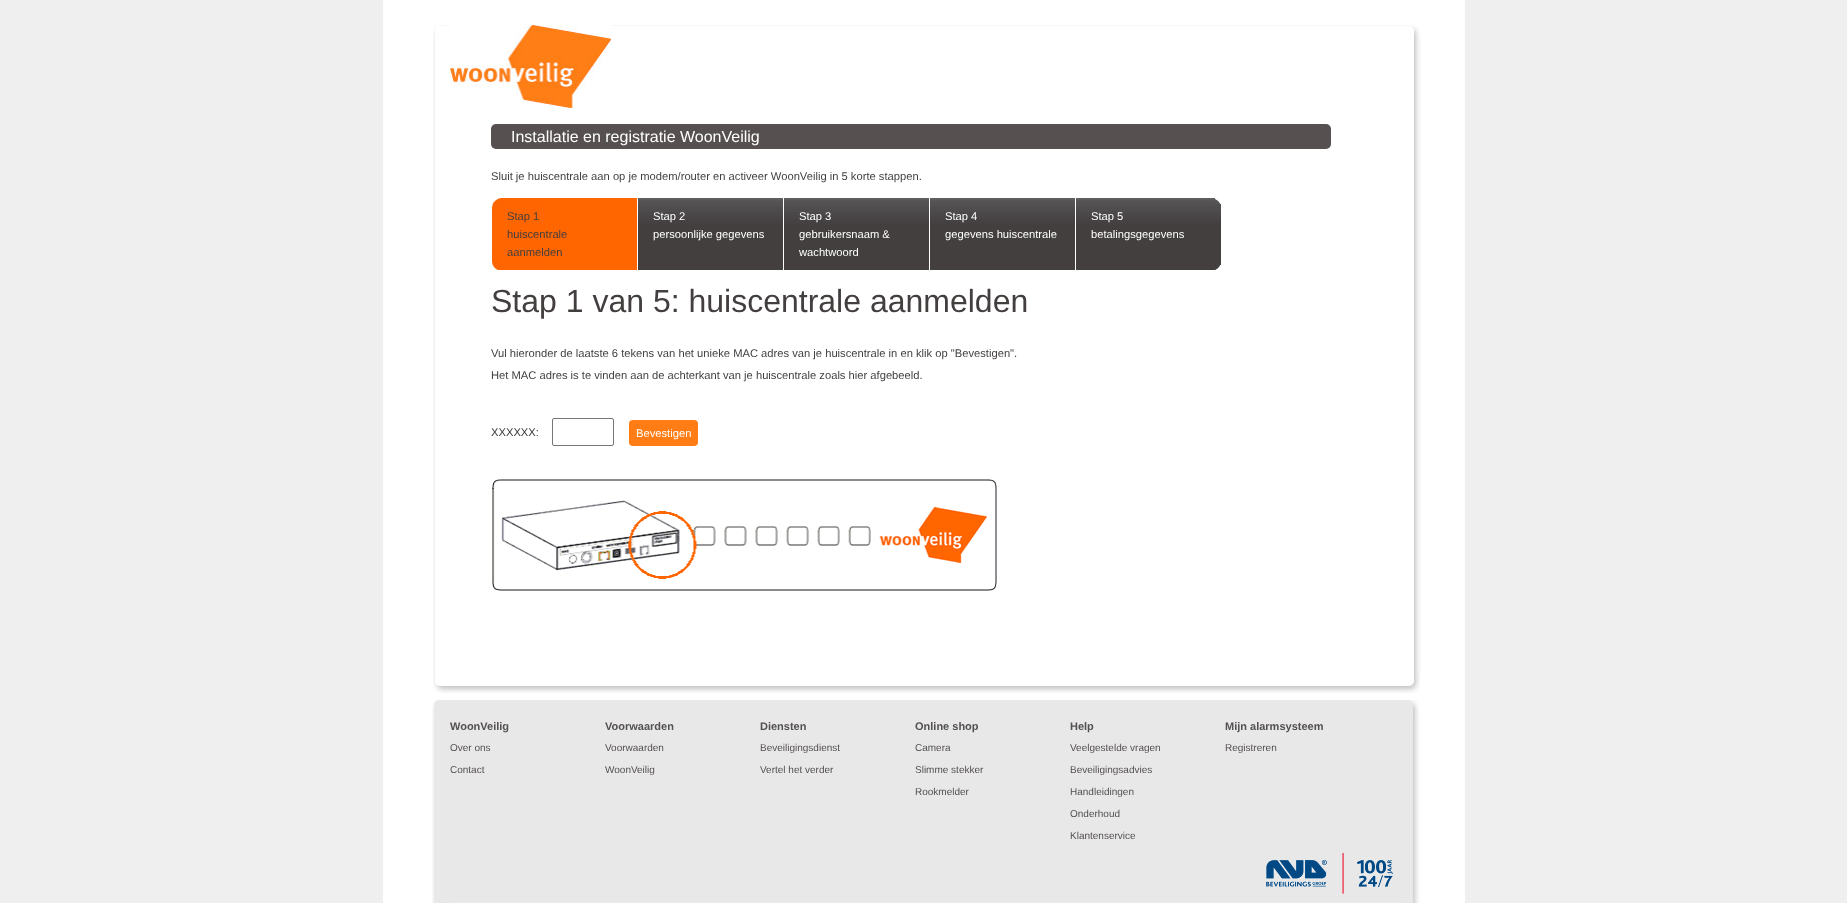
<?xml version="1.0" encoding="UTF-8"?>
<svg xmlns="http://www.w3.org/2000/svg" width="1847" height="903">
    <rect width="100%" height="100%" fill="#F0EFEF"/>
    <rect x="383" y="0" width="1082" height="903" fill="#FFFFFF"/>
    <image x="433" y="25" width="987" height="12" href="img_01.png"/>
    <image x="433" y="37" width="988" height="640" href="img_03.png"/>
    <image x="450" y="25" width="161" height="83" href="img_02.png"/>
    <rect x="491" y="124" width="840" height="25" rx="5" fill="#565050"/>
    <text x="511" y="142" font-family="Liberation Sans" font-size="16" fill="#FFFFFF">Installatie en registratie WoonVeilig</text>
    <text x="491" y="180" font-family="Liberation Sans" font-size="11.2" fill="#433F3F">Sluit je huiscentrale aan op je modem/router en activeer WoonVeilig in 5 korte stappen.</text>
    <image x="492" y="198" width="145" height="72" href="img_04.png"/>
    <text font-family="Liberation Sans" font-size="11.2" fill="#433F3F">
        <tspan x="507" y="220">Stap 1</tspan>
        <tspan x="507" y="238">huiscentrale</tspan>
        <tspan x="507" y="256">aanmelden</tspan>
    </text>
    <image x="638" y="198" width="145" height="72" href="img_05.png"/>
    <text font-family="Liberation Sans" font-size="11.2" fill="#FFFFFF">
        <tspan x="653" y="220">Stap 2</tspan>
        <tspan x="653" y="238">persoonlijke gegevens</tspan>
    </text>
    <image x="784" y="198" width="145" height="72" href="img_05.png"/>
    <text font-family="Liberation Sans" font-size="11.2" fill="#FFFFFF">
        <tspan x="799" y="220">Stap 3</tspan>
        <tspan x="799" y="238">gebruikersnaam &amp;</tspan>
        <tspan x="799" y="256">wachtwoord</tspan>
    </text>
    <image x="930" y="198" width="145" height="72" href="img_05.png"/>
    <text font-family="Liberation Sans" font-size="11.2" fill="#FFFFFF">
        <tspan x="945" y="220">Stap 4</tspan>
        <tspan x="945" y="238">gegevens huiscentrale</tspan>
    </text>
    <image x="1076" y="198" width="145" height="72" href="img_06.png"/>
    <text font-family="Liberation Sans" font-size="11.2" fill="#FFFFFF">
        <tspan x="1091" y="220">Stap 5</tspan>
        <tspan x="1091" y="238">betalingsgegevens</tspan>
    </text>
    <text x="491" y="312" font-family="Liberation Sans" font-size="32" fill="#433F3F">Stap 1 van 5: huiscentrale aanmelden</text>
    <text font-family="Liberation Sans" font-size="11.2" fill="#433F3F">
        <tspan x="491" y="357">Vul hieronder de laatste 6 tekens van het unieke MAC adres van je huiscentrale in en klik op "Bevestigen".</tspan>
        <tspan x="491" y="379">Het MAC adres is te vinden aan de achterkant van je huiscentrale zoals hier afgebeeld.</tspan>
    </text>
    <text x="491" y="436" font-family="Liberation Sans" font-size="11.2" fill="#433F3F">XXXXXX:</text>
    <rect x="552.5" y="418.5" width="61" height="27" rx="1.5" fill="none" stroke="#767676"/>
    <rect x="629" y="420" width="69" height="26" rx="4" fill="#FF7D14"/>
    <text x="636" y="437" font-family="Liberation Sans" font-size="11.2" fill="#FFFFFF">Bevestigen</text>
    <image x="492" y="479" width="505" height="112" href="img_07.png"/>
    <image x="433" y="677" width="987" height="16" href="img_08.png"/>
    <image x="432" y="700" width="988" height="202" href="img_09.png"/>
    <text x="450" y="730" font-family="Liberation Sans" font-size="11" font-weight="700" fill="#555050">WoonVeilig</text>
    <text x="450" y="751" font-family="Liberation Sans" font-size="10" fill="#555050">Over ons</text>
    <text x="450" y="773" font-family="Liberation Sans" font-size="10" fill="#555050">Contact</text>
    <text x="605" y="730" font-family="Liberation Sans" font-size="11" font-weight="700" fill="#555050">Voorwaarden</text>
    <text x="605" y="751" font-family="Liberation Sans" font-size="10" fill="#555050">Voorwaarden</text>
    <text x="605" y="773" font-family="Liberation Sans" font-size="10" fill="#555050">WoonVeilig</text>
    <text x="760" y="730" font-family="Liberation Sans" font-size="11" font-weight="700" fill="#555050">Diensten</text>
    <text x="760" y="751" font-family="Liberation Sans" font-size="10" fill="#555050">Beveiligingsdienst</text>
    <text x="760" y="773" font-family="Liberation Sans" font-size="10" fill="#555050">Vertel het verder</text>
    <text x="915" y="730" font-family="Liberation Sans" font-size="11" font-weight="700" fill="#555050">Online shop</text>
    <text x="915" y="751" font-family="Liberation Sans" font-size="10" fill="#555050">Camera</text>
    <text x="915" y="773" font-family="Liberation Sans" font-size="10" fill="#555050">Slimme stekker</text>
    <text x="915" y="795" font-family="Liberation Sans" font-size="10" fill="#555050">Rookmelder</text>
    <text x="1070" y="730" font-family="Liberation Sans" font-size="11" font-weight="700" fill="#555050">Help</text>
    <text x="1070" y="751" font-family="Liberation Sans" font-size="10" fill="#555050">Veelgestelde vragen</text>
    <text x="1070" y="773" font-family="Liberation Sans" font-size="10" fill="#555050">Beveiligingsadvies</text>
    <text x="1070" y="795" font-family="Liberation Sans" font-size="10" fill="#555050">Handleidingen</text>
    <text x="1070" y="817" font-family="Liberation Sans" font-size="10" fill="#555050">Onderhoud</text>
    <text x="1070" y="839" font-family="Liberation Sans" font-size="10" fill="#555050">Klantenservice</text>
    <text x="1225" y="730" font-family="Liberation Sans" font-size="11" font-weight="700" fill="#555050">Mijn alarmsysteem</text>
    <text x="1225" y="751" font-family="Liberation Sans" font-size="10" fill="#555050">Registreren</text>
    <image x="1266" y="853" width="127" height="41" href="img_10.png"/>
    <image x="432" y="902" width="987" height="1" href="img_11.png"/>
</svg>
